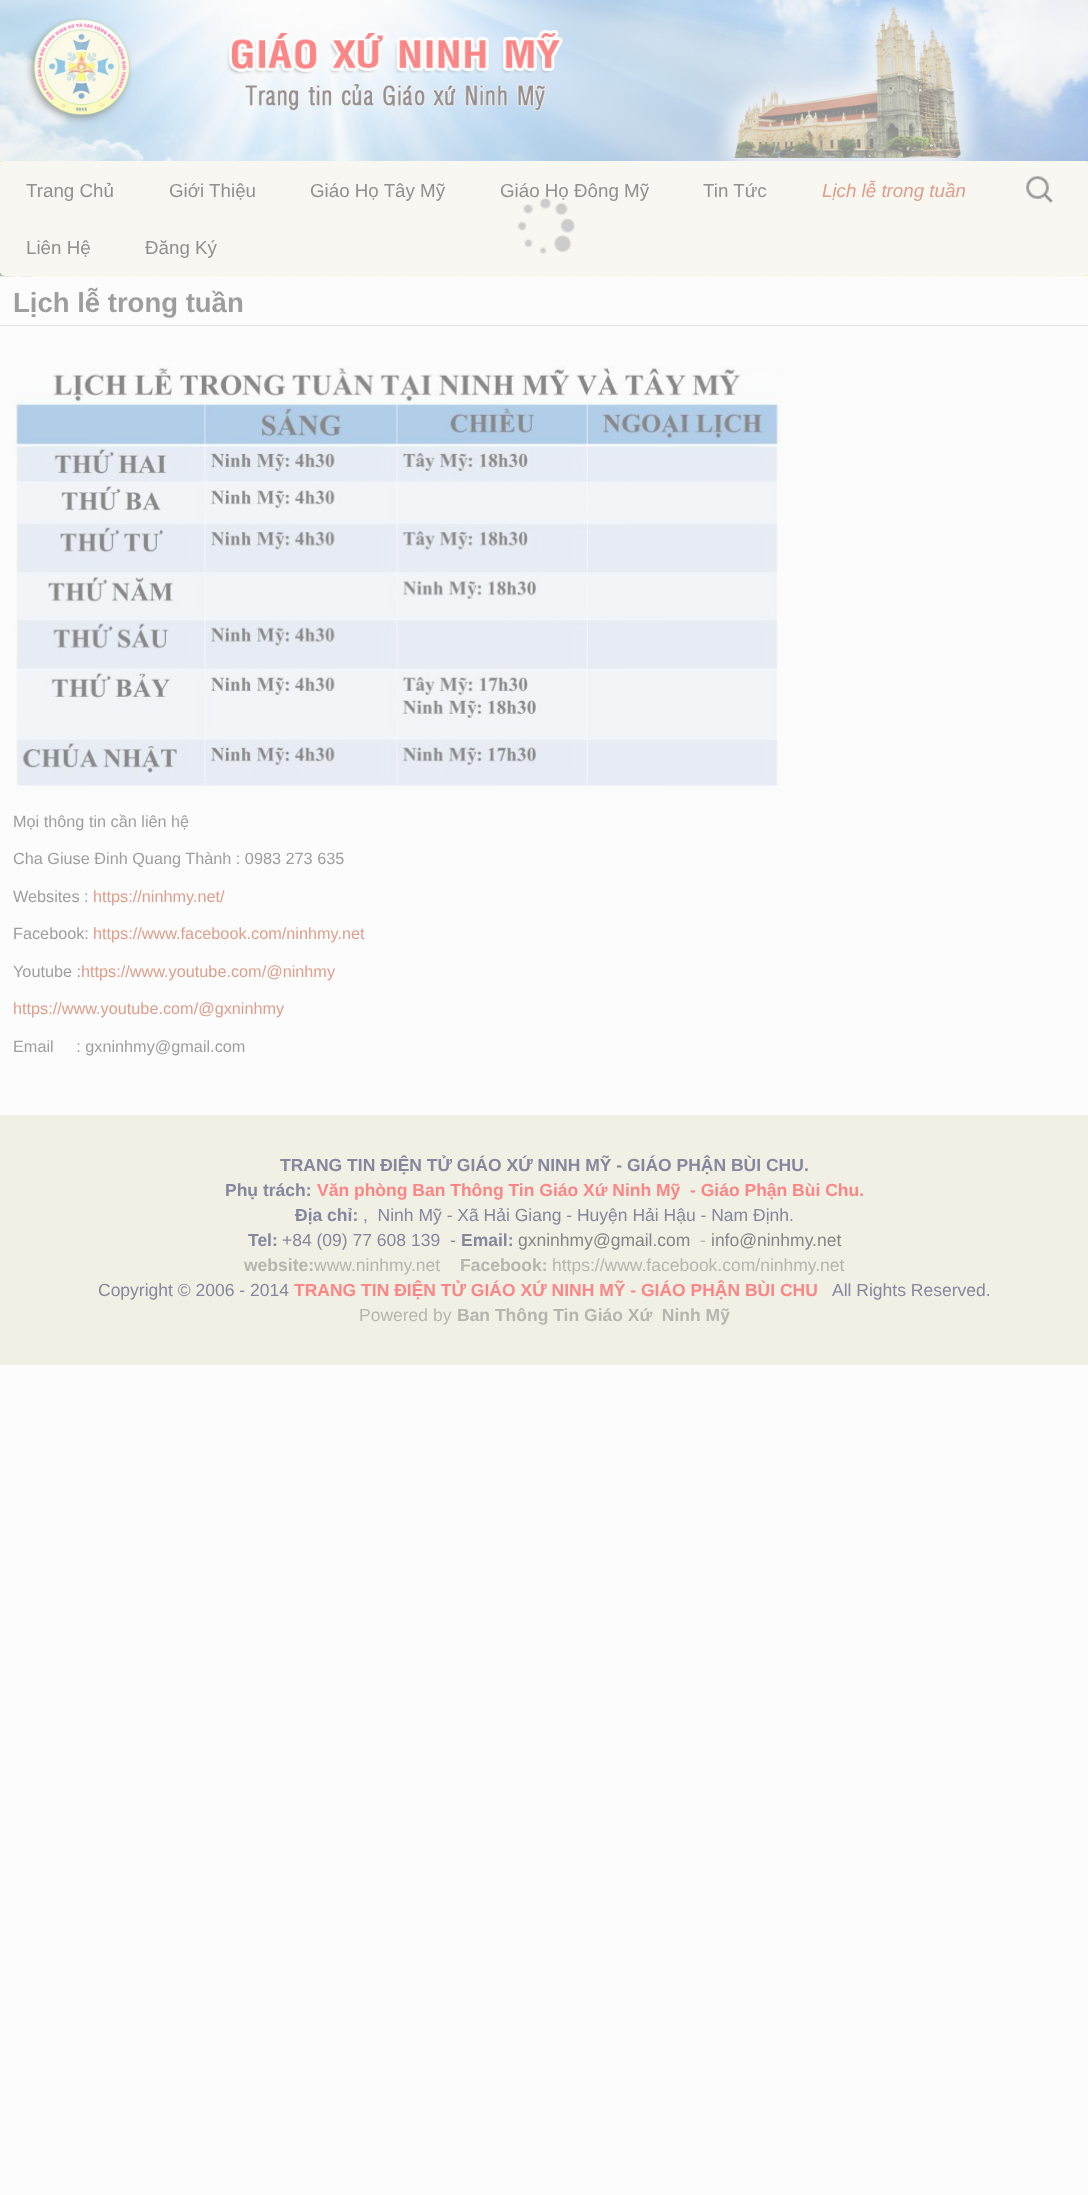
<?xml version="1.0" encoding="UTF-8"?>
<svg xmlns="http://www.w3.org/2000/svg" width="1088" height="2195">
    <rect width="100%" height="100%" fill="#FCFCFC"/>
    <image x="0" y="161" width="1088" height="116" href="img_01.png"/>
    <image x="0" y="0" width="1088" height="162" href="img_02.png"/>
    <rect x="0" y="161" width="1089" height="115" rx="5" fill="#F8F7F1"/>
    <text x="26" y="197" font-family="Liberation Sans" font-size="18.75" fill="#90908F">Trang Chủ</text>
    <text x="169" y="197" font-family="Liberation Sans" font-size="18.75" fill="#90908F">Giới Thiệu</text>
    <text x="310" y="197" font-family="Liberation Sans" font-size="18.75" fill="#90908F">Giáo Họ Tây Mỹ</text>
    <text x="500" y="197" font-family="Liberation Sans" font-size="18.75" fill="#90908F">Giáo Họ Đông Mỹ</text>
    <text x="703" y="197" font-family="Liberation Sans" font-size="18.75" fill="#90908F">Tin Tức</text>
    <text x="822" y="197" font-family="Liberation Sans" font-size="18.75" font-style="italic" fill="#DD9F8B">Lịch lễ trong tuần</text>
    <text x="26" y="254" font-family="Liberation Sans" font-size="18.75" fill="#90908F">Liên Hệ</text>
    <text x="145" y="254" font-family="Liberation Sans" font-size="18.75" fill="#90908F">Đăng Ký</text>
    <image x="1026" y="176" width="27" height="27" href="img_03.png"/>
    <rect x="0" y="325" width="1088" height="1" fill="#E4E4E4"/>
    <text x="13" y="312" font-family="Liberation Sans" font-size="27.5" font-weight="700" fill="#9E9E9E">Lịch lễ trong tuần</text>
    <image x="12" y="365" width="771" height="426" href="img_04.png"/>
    <text x="13" y="827" font-family="Liberation Sans" font-size="16.25" fill="#9E9E9E">Mọi thông tin cần liên hệ</text>
    <text x="13" y="864" font-family="Liberation Sans" font-size="16.25" fill="#9E9E9E">Cha Giuse Đinh Quang Thành : 0983 273 635</text>
    <text x="13" y="902" font-family="Liberation Sans" font-size="16.25" fill="#9E9E9E">Websites :</text>
    <text x="93" y="902" font-family="Liberation Sans" font-size="16.25" fill="#DD9F8B">https://ninhmy.net/</text>
    <text x="13" y="939" font-family="Liberation Sans" font-size="16.25" fill="#9E9E9E">Facebook:</text>
    <text x="93" y="939" font-family="Liberation Sans" font-size="16.25" fill="#DD9F8B">https://www.facebook.com/ninhmy.net</text>
    <text x="13" y="977" font-family="Liberation Sans" font-size="16.25" fill="#9E9E9E">Youtube :</text>
    <text x="81" y="977" font-family="Liberation Sans" font-size="16.25" fill="#DD9F8B">https://www.youtube.com/@ninhmy</text>
    <text x="13" y="1014" font-family="Liberation Sans" font-size="16.25" fill="#DD9F8B">https://www.youtube.com/@gxninhmy</text>
    <text x="13" y="1052" font-family="Liberation Sans" font-size="16.25" fill="#9E9E9E" xml:space="preserve">Email     : gxninhmy@gmail.com</text>
    <rect x="0" y="1115" width="1088" height="250" fill="#F1F0E5"/>
    <text x="280" y="1171" font-family="Liberation Sans" font-size="17.5" font-weight="700" fill="#86869E">TRANG TIN ĐIỆN TỬ GIÁO XỨ NINH MỸ - GIÁO PHẬN BÙI CHU.</text>
    <text x="225" y="1196" font-family="Liberation Sans" font-size="17.5" font-weight="700" fill="#86869E">Phụ trách:</text>
    <text x="317" y="1196" font-family="Liberation Sans" font-size="17.5" font-weight="700" fill="#FC8686" xml:space="preserve">Văn phòng Ban Thông Tin Giáo Xứ Ninh Mỹ  - Giáo Phận Bùi Chu.</text>
    <text x="295" y="1221" font-family="Liberation Sans" font-size="17.5" font-weight="700" fill="#86869E">Địa chỉ:</text>
    <text x="363" y="1221" font-family="Liberation Sans" font-size="17.5" fill="#86869E" xml:space="preserve">,  Ninh Mỹ - Xã Hải Giang - Huyện Hải Hậu - Nam Định.</text>
    <text x="248" y="1246" font-family="Liberation Sans" font-size="17.5" font-weight="700" fill="#86869E">Tel:</text>
    <text x="282" y="1246" font-family="Liberation Sans" font-size="17.5" fill="#86869E">+84 (09) 77 608 139</text>
    <text x="450" y="1246" font-family="Liberation Sans" font-size="17.5" fill="#86869E">-</text>
    <text x="461" y="1246" font-family="Liberation Sans" font-size="17.5" font-weight="700" fill="#86869E">Email:</text>
    <text x="518" y="1246" font-family="Liberation Sans" font-size="17.5" fill="#868686">gxninhmy@gmail.com</text>
    <text x="700" y="1246" font-family="Liberation Sans" font-size="17.5" fill="#B6B6AF">-</text>
    <text x="711" y="1246" font-family="Liberation Sans" font-size="17.5" fill="#868686">info@ninhmy.net</text>
    <text x="244" y="1271" font-family="Liberation Sans" font-size="17.5" font-weight="700" fill="#B6B6AF">website:</text>
    <text x="314" y="1271" font-family="Liberation Sans" font-size="17.5" fill="#B6B6AF">www.ninhmy.net</text>
    <text x="460" y="1271" font-family="Liberation Sans" font-size="17.5" font-weight="700" fill="#B6B6AF">Facebook:</text>
    <text x="552" y="1271" font-family="Liberation Sans" font-size="17.5" fill="#B6B6AF">https://www.facebook.com/ninhmy.net</text>
    <text x="98" y="1296" font-family="Liberation Sans" font-size="17.5" fill="#86869E">Copyright © 2006 - 2014</text>
    <text x="294" y="1296" font-family="Liberation Sans" font-size="17.5" font-weight="700" fill="#FC8686">TRANG TIN ĐIỆN TỬ GIÁO XỨ NINH MỸ - GIÁO PHẬN BÙI CHU</text>
    <text x="832" y="1296" font-family="Liberation Sans" font-size="17.5" fill="#86869E">All Rights Reserved.</text>
    <text x="359" y="1321" font-family="Liberation Sans" font-size="17.5" fill="#B6B6AF">Powered by</text>
    <text x="457" y="1321" font-family="Liberation Sans" font-size="17.5" font-weight="700" fill="#B6B6AF" xml:space="preserve">Ban Thông Tin Giáo Xứ  Ninh Mỹ</text>
    <image x="517" y="198" width="58" height="56" href="img_05.png"/>
</svg>
